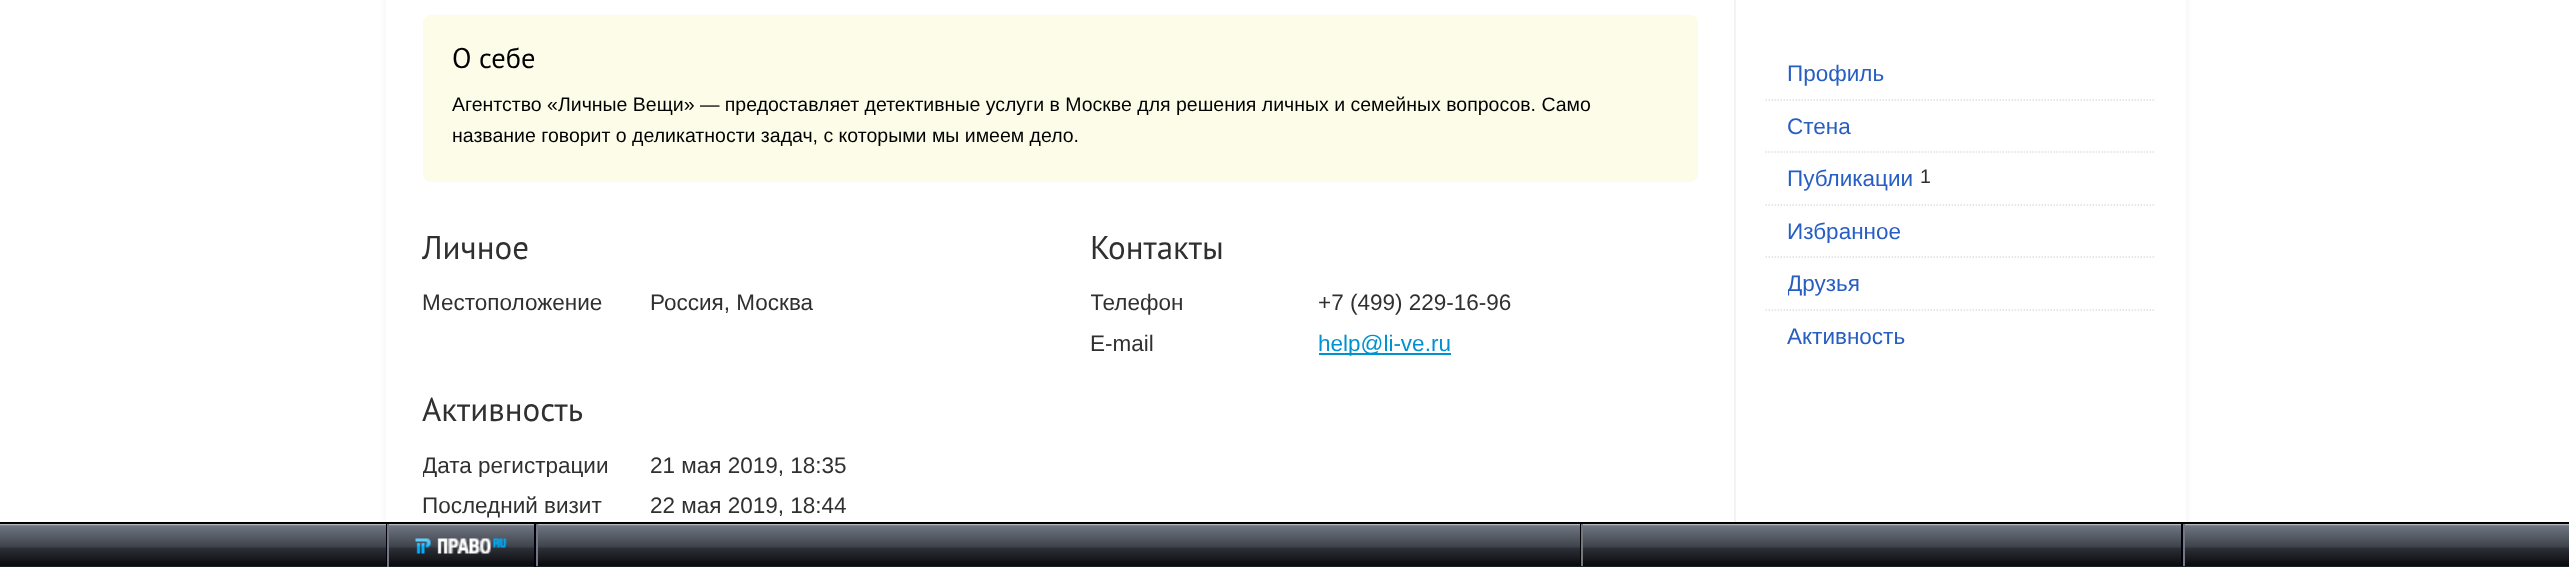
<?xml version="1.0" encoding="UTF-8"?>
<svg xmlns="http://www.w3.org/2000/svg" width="2569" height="567">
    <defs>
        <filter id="blur1" x="-50%" y="-200%" width="200%" height="500%"><feGaussianBlur stdDeviation="4"/></filter>
        <clipPath id="clip1"><rect x="423" y="452" width="608" height="25"/></clipPath>
        <clipPath id="clip2"><rect x="1091" y="290" width="607" height="25"/></clipPath>
        <clipPath id="clip3"><rect x="1788" y="218" width="353" height="25"/></clipPath>
        <clipPath id="clip4"><rect x="1788" y="270" width="353" height="26"/></clipPath>
    </defs>
    <rect width="100%" height="100%" fill="#FFFFFF"/>
    <rect x="386" y="-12" width="1800" height="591" fill="#000000" fill-opacity="0.05" filter="url(#blur1)"/>
    <rect x="386" y="0" width="1800" height="522" fill="#FFFFFF"/>
    <rect x="423" y="15" width="1275" height="167" rx="8" fill="#FCFCE9"/>
    <text x="452" y="68" font-family="PT Sans" font-size="28.5" fill="#000000">О себе</text>
    <text font-family="Liberation Sans" font-size="19.5" fill="#000000">
        <tspan x="452" y="111">Агентство «Личные Вещи» — предоставляет детективные услуги в Москве для решения личных и семейных вопросов. Само</tspan>
        <tspan x="452" y="142">название говорит о деликатности задач, с которыми мы имеем дело.</tspan>
    </text>
    <text x="422" y="259" font-family="PT Sans" font-size="33" fill="#303030">Личное</text>
    <text x="422" y="310" font-family="Liberation Sans" font-size="22.5" fill="#303030">Местоположение</text>
    <text x="650" y="310" font-family="Liberation Sans" font-size="22.5" fill="#303030">Россия, Москва</text>
    <text x="422" y="421" font-family="PT Sans" font-size="33" fill="#303030">Активность</text>
    <g clip-path="url(#clip1)">
        <text x="422" y="473" font-family="Liberation Sans" font-size="22.5" fill="#303030">Дата регистрации</text>
    </g>
    <text x="650" y="473" font-family="Liberation Sans" font-size="22.5" fill="#303030">21 мая 2019, 18:35</text>
    <text x="422" y="513" font-family="Liberation Sans" font-size="22.5" fill="#303030">Последний визит</text>
    <text x="650" y="513" font-family="Liberation Sans" font-size="22.5" fill="#303030">22 мая 2019, 18:44</text>
    <text x="1090" y="259" font-family="PT Sans" font-size="33" fill="#303030">Контакты</text>
    <g clip-path="url(#clip2)">
        <text x="1090" y="310" font-family="Liberation Sans" font-size="22.5" fill="#303030">Телефон</text>
    </g>
    <text x="1318" y="310" font-family="Liberation Sans" font-size="22.5" fill="#303030">+7 (499) 229-16-96</text>
    <text x="1090" y="351" font-family="Liberation Sans" font-size="22.5" fill="#303030">E-mail</text>
    <rect x="1319" y="353" width="132" height="2" fill="#0091D1"/>
    <text x="1318" y="351" font-family="Liberation Sans" font-size="22.5" fill="#0091D1">help@li-ve.ru</text>
    <rect x="1734" y="0" width="2" height="522" fill="#F1F3F5"/>
    <path d="M 1765.5 100 H 2155.5" fill="none" stroke="#DCE1E6" stroke-width="1.5" stroke-dasharray="1.5 1.5"/>
    <text x="1787" y="81" font-family="Liberation Sans" font-size="22.5" fill="#275EC2">Профиль</text>
    <path d="M 1765.5 152 H 2155.5" fill="none" stroke="#DCE1E6" stroke-width="1.5" stroke-dasharray="1.5 1.5"/>
    <text x="1787" y="134" font-family="Liberation Sans" font-size="22.5" fill="#275EC2">Стена</text>
    <path d="M 1765.5 205 H 2155.5" fill="none" stroke="#DCE1E6" stroke-width="1.5" stroke-dasharray="1.5 1.5"/>
    <text x="1787" y="186" font-family="Liberation Sans" font-size="22.5" fill="#275EC2">Публикации</text>
    <text x="1920" y="183" font-family="Liberation Sans" font-size="19.5" fill="#303030">1</text>
    <path d="M 1765.5 257 H 2155.5" fill="none" stroke="#DCE1E6" stroke-width="1.5" stroke-dasharray="1.5 1.5"/>
    <g clip-path="url(#clip3)">
        <text x="1787" y="239" font-family="Liberation Sans" font-size="22.5" fill="#275EC2">Избранное</text>
    </g>
    <path d="M 1765.5 310 H 2155.5" fill="none" stroke="#DCE1E6" stroke-width="1.5" stroke-dasharray="1.5 1.5"/>
    <g clip-path="url(#clip4)">
        <text x="1787" y="291" font-family="Liberation Sans" font-size="22.5" fill="#275EC2">Друзья</text>
    </g>
    <text x="1787" y="344" font-family="Liberation Sans" font-size="22.5" fill="#275EC2">Активность</text>
    <image x="0" y="524" width="2569" height="43" href="img_01.png"/>
    <rect x="0" y="522" width="2569" height="2" fill="#000000"/>
    <rect x="2183" y="524" width="2" height="42" fill="#747780"/>
    <rect x="386" y="524" width="1" height="42" fill="#00000C"/>
    <rect x="534" y="524" width="2" height="43" fill="#00000C"/>
    <rect x="387" y="524" width="2" height="43" fill="#747780"/>
    <image x="415" y="538" width="93" height="16" href="img_02.png"/>
    <rect x="536" y="524" width="2" height="42" fill="#747780"/>
    <rect x="1580" y="524" width="1" height="42" fill="#000000"/>
    <rect x="2181" y="524" width="2" height="42" fill="#00000C"/>
    <rect x="1581" y="524" width="2" height="42" fill="#747780"/>
</svg>
